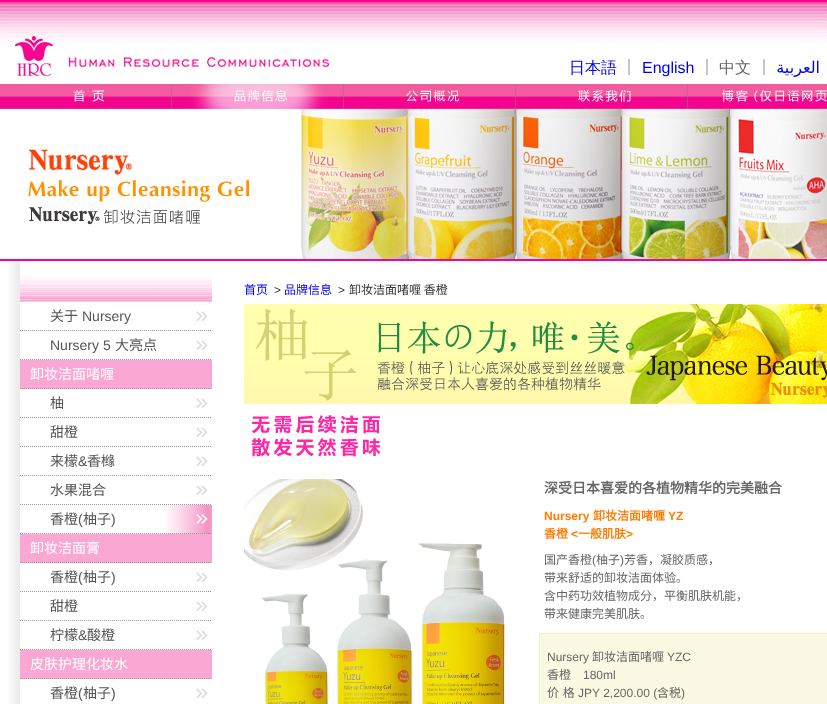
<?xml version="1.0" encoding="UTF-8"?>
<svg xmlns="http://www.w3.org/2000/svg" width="827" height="704">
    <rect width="100%" height="100%" fill="#FFFFFF"/>
    <rect x="0" y="259" width="827" height="2" fill="#F3058F"/>
    <image x="0" y="0" width="827" height="76" href="img_01.png"/>
    <text x="569" y="73" font-family="WenQuanYi Zen Hei" font-size="16" font-weight="500" fill="#0000EE">日本語</text>
    <text x="621" y="73" font-family="Noto Sans CJK SC" font-size="16" fill="#666666">｜</text>
    <text x="642" y="73" font-family="Liberation Sans" font-size="16" fill="#0000EE">English</text>
    <text x="699" y="73" font-family="Noto Sans CJK SC" font-size="16" fill="#666666">｜</text>
    <text x="719" y="73" font-family="WenQuanYi Zen Hei" font-size="16" font-weight="500" fill="#666666">中文</text>
    <text x="756" y="73" font-family="Noto Sans CJK SC" font-size="16" fill="#666666">｜</text>
    <text x="820" y="73" font-family="DejaVu Sans" font-size="16" direction="rtl" fill="#0000EE">العربية</text>
    <image x="0" y="84" width="172" height="25" href="img_02.png"/>
    <image x="172" y="84" width="172" height="25" href="img_03.png"/>
    <image x="344" y="84" width="172" height="25" href="img_04.png"/>
    <image x="516" y="84" width="172" height="25" href="img_05.png"/>
    <image x="688" y="84" width="139" height="25" href="img_06.png"/>
    <image x="28" y="109" width="799" height="150" href="img_07.png"/>
    <image x="9" y="261" width="11" height="443" href="img_08.png"/>
    <image x="20" y="276" width="192" height="26" href="img_09.png"/>
    <image x="112" y="304" width="100" height="17" href="img_10.png"/>
    <path d="M 20 330.5 H 212" fill="none" stroke="#999999" stroke-dasharray="1 1"/>
    <text x="50" y="321" font-family="Noto Sans CJK SC" font-size="14" fill="#555555">关于</text>
    <text x="82" y="321" font-family="Liberation Sans" font-size="14" fill="#555555">Nursery</text>
    <image x="112" y="333" width="100" height="17" href="img_10.png"/>
    <path d="M 20 359.5 H 212" fill="none" stroke="#999999" stroke-dasharray="1 1"/>
    <text x="50" y="350" font-family="Liberation Sans" font-size="14" fill="#555555">Nursery 5</text>
    <text x="115" y="350" font-family="Noto Sans CJK SC" font-size="14" fill="#555555">大亮点</text>
    <rect x="20" y="360" width="192" height="29" fill="#FAA8D3"/>
    <path d="M 20 388.5 H 212" fill="none" stroke="#999999" stroke-dasharray="1 1"/>
    <text x="30" y="379" font-family="Noto Sans CJK SC" font-size="14" fill="#FFFFFF">卸妆洁面啫喱</text>
    <image x="112" y="391" width="100" height="17" href="img_10.png"/>
    <path d="M 20 417.5 H 212" fill="none" stroke="#999999" stroke-dasharray="1 1"/>
    <text x="50" y="408" font-family="Noto Sans CJK SC" font-size="14" fill="#555555">柚</text>
    <image x="112" y="420" width="100" height="17" href="img_10.png"/>
    <path d="M 20 446.5 H 212" fill="none" stroke="#999999" stroke-dasharray="1 1"/>
    <text x="50" y="437" font-family="Noto Sans CJK SC" font-size="14" fill="#555555">甜橙</text>
    <image x="112" y="449" width="100" height="17" href="img_10.png"/>
    <path d="M 20 475.5 H 212" fill="none" stroke="#999999" stroke-dasharray="1 1"/>
    <text x="50" y="466" font-family="Noto Sans CJK SC" font-size="14" fill="#555555">来檬</text>
    <text x="78" y="466" font-family="Liberation Sans" font-size="14" fill="#555555">&amp;</text>
    <text x="87" y="466" font-family="Noto Sans CJK SC" font-size="14" fill="#555555">香橼</text>
    <image x="112" y="478" width="100" height="17" href="img_10.png"/>
    <path d="M 20 504.5 H 212" fill="none" stroke="#999999" stroke-dasharray="1 1"/>
    <text x="50" y="495" font-family="Noto Sans CJK SC" font-size="14" fill="#555555">水果混合</text>
    <image x="165" y="505" width="47" height="29" href="img_11.png"/>
    <path d="M 20 533.5 H 212" fill="none" stroke="#999999" stroke-dasharray="1 1"/>
    <text x="50" y="524" font-family="Noto Sans CJK SC" font-size="14" fill="#555555">香橙</text>
    <text x="78" y="524" font-family="Liberation Sans" font-size="14" fill="#555555">(</text>
    <text x="83" y="524" font-family="Noto Sans CJK SC" font-size="14" fill="#555555">柚子</text>
    <text x="111" y="524" font-family="Liberation Sans" font-size="14" fill="#555555">)</text>
    <rect x="20" y="534" width="192" height="29" fill="#FAA8D3"/>
    <path d="M 20 562.5 H 212" fill="none" stroke="#999999" stroke-dasharray="1 1"/>
    <text x="30" y="553" font-family="Noto Sans CJK SC" font-size="14" fill="#FFFFFF">卸妆洁面膏</text>
    <image x="112" y="565" width="100" height="17" href="img_10.png"/>
    <path d="M 20 591.5 H 212" fill="none" stroke="#999999" stroke-dasharray="1 1"/>
    <text x="50" y="582" font-family="Noto Sans CJK SC" font-size="14" fill="#555555">香橙</text>
    <text x="78" y="582" font-family="Liberation Sans" font-size="14" fill="#555555">(</text>
    <text x="83" y="582" font-family="Noto Sans CJK SC" font-size="14" fill="#555555">柚子</text>
    <text x="111" y="582" font-family="Liberation Sans" font-size="14" fill="#555555">)</text>
    <image x="112" y="594" width="100" height="17" href="img_10.png"/>
    <path d="M 20 620.5 H 212" fill="none" stroke="#999999" stroke-dasharray="1 1"/>
    <text x="50" y="611" font-family="Noto Sans CJK SC" font-size="14" fill="#555555">甜橙</text>
    <image x="112" y="623" width="100" height="17" href="img_10.png"/>
    <path d="M 20 649.5 H 212" fill="none" stroke="#999999" stroke-dasharray="1 1"/>
    <text x="50" y="640" font-family="Noto Sans CJK SC" font-size="14" fill="#555555">柠檬</text>
    <text x="78" y="640" font-family="Liberation Sans" font-size="14" fill="#555555">&amp;</text>
    <text x="87" y="640" font-family="Noto Sans CJK SC" font-size="14" fill="#555555">酸橙</text>
    <rect x="20" y="650" width="192" height="29" fill="#FAA8D3"/>
    <path d="M 20 678.5 H 212" fill="none" stroke="#999999" stroke-dasharray="1 1"/>
    <text x="30" y="669" font-family="Noto Sans CJK SC" font-size="14" fill="#FFFFFF">皮肤护理化妆水</text>
    <image x="112" y="681" width="100" height="17" href="img_10.png"/>
    <text x="50" y="698" font-family="Noto Sans CJK SC" font-size="14" fill="#555555">香橙</text>
    <text x="78" y="698" font-family="Liberation Sans" font-size="14" fill="#555555">(</text>
    <text x="83" y="698" font-family="Noto Sans CJK SC" font-size="14" fill="#555555">柚子</text>
    <text x="111" y="698" font-family="Liberation Sans" font-size="14" fill="#555555">)</text>
    <text x="244" y="294" font-family="Noto Sans CJK SC" font-size="12" fill="#0000EE">首页</text>
    <text x="274" y="294" font-family="Liberation Sans" font-size="12" fill="#333333">&gt;</text>
    <text x="284" y="294" font-family="Noto Sans CJK SC" font-size="12" fill="#0000EE">品牌信息</text>
    <text x="338" y="294" font-family="Liberation Sans" font-size="12" fill="#333333">&gt;</text>
    <text x="349" y="294" font-family="Noto Sans CJK SC" font-size="12" fill="#333333">卸妆洁面啫喱 香橙</text>
    <image x="244" y="304" width="583" height="100" href="img_12.png"/>
    <image x="251" y="415" width="130" height="42" href="img_13.png"/>
    <image x="244" y="479" width="261" height="225" href="img_14.png"/>
    <text x="544" y="493" font-family="Noto Sans CJK SC" font-size="14" font-weight="700" fill="#666666">深受日本喜爱的各植物精华的完美融合</text>
    <text x="544" y="520" font-family="Liberation Sans" font-size="12" font-weight="700" fill="#FF7C00">Nursery</text>
    <text x="593" y="520" font-family="Noto Sans CJK SC" font-size="12" font-weight="700" fill="#FF7C00">卸妆洁面啫喱</text>
    <text x="668" y="520" font-family="Liberation Sans" font-size="12" font-weight="700" fill="#FF7C00">YZ</text>
    <text x="544" y="538" font-family="Noto Sans CJK SC" font-size="12" font-weight="700" fill="#FF7C00">香橙</text>
    <text x="571" y="538" font-family="Liberation Sans" font-size="12" font-weight="700" fill="#FF7C00">&lt;</text>
    <text x="578" y="538" font-family="Noto Sans CJK SC" font-size="12" font-weight="700" fill="#FF7C00">一般肌肤</text>
    <text x="626" y="538" font-family="Liberation Sans" font-size="12" font-weight="700" fill="#FF7C00">&gt;</text>
    <text x="544" y="564" font-family="Noto Sans CJK SC" font-size="12" fill="#666666">国产香橙</text>
    <text x="592" y="564" font-family="Liberation Sans" font-size="12" fill="#666666">(</text>
    <text x="596" y="564" font-family="Noto Sans CJK SC" font-size="12" fill="#666666">柚子</text>
    <text x="620" y="564" font-family="Liberation Sans" font-size="12" fill="#666666">)</text>
    <text x="624" y="564" font-family="Noto Sans CJK SC" font-size="12" fill="#666666">芳香，凝胶质感，</text>
    <text font-family="Noto Sans CJK SC" font-size="12" fill="#666666">
        <tspan x="544" y="582">带来舒适的卸妆洁面体验。</tspan>
        <tspan x="544" y="600">含中药功效植物成分，平衡肌肤机能，</tspan>
        <tspan x="544" y="618">带来健康完美肌肤。</tspan>
    </text>
    <rect x="539.5" y="633.5" width="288" height="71" fill="#FBF8E3" stroke="#F7F0C1"/>
    <text x="547" y="661" font-family="Liberation Sans" font-size="12" fill="#666666">Nursery</text>
    <text x="592" y="661" font-family="Noto Sans CJK SC" font-size="12" fill="#666666">卸妆洁面啫喱</text>
    <text x="667" y="661" font-family="Liberation Sans" font-size="12" fill="#666666">YZC</text>
    <text x="547" y="679" font-family="Noto Sans CJK SC" font-size="12" fill="#666666">香橙</text>
    <text x="583" y="679" font-family="Liberation Sans" font-size="12" fill="#666666">180ml</text>
    <text x="547" y="697" word-spacing="1" font-family="Noto Sans CJK SC" font-size="12" fill="#666666">价 格</text>
    <text x="578" y="697" font-family="Liberation Sans" font-size="12" fill="#666666">JPY 2,200.00 (</text>
    <text x="657" y="697" font-family="Noto Sans CJK SC" font-size="12" fill="#666666">含税</text>
    <text x="681" y="697" font-family="Liberation Sans" font-size="12" fill="#666666">)</text>
</svg>
